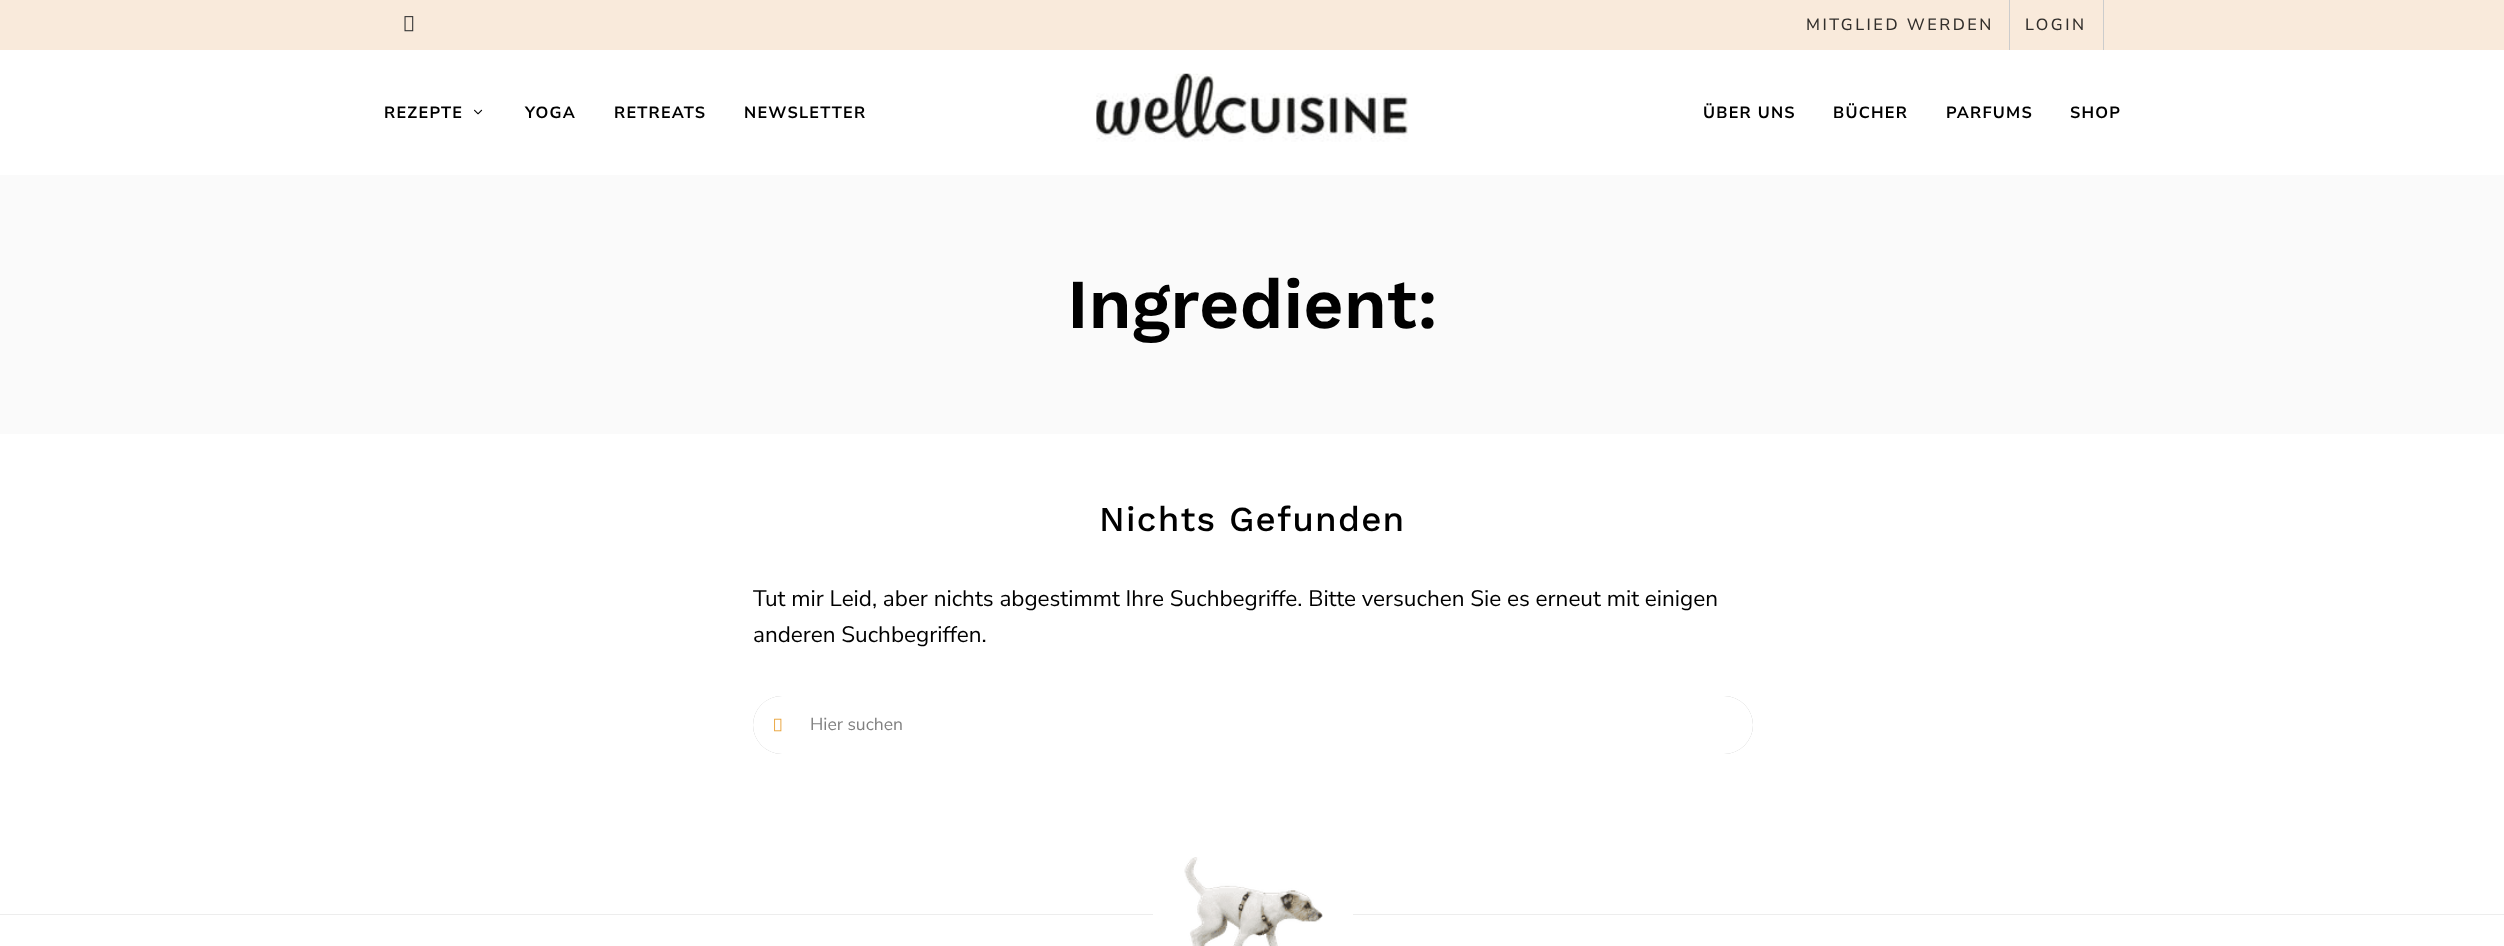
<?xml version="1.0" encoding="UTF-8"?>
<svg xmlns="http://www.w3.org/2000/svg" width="2504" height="946">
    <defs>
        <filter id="blur1" x="-50%" y="-200%" width="200%" height="500%"><feGaussianBlur stdDeviation="0.5"/></filter>
    </defs>
    <rect width="100%" height="100%" fill="#FFFFFF"/>
    <rect x="0" y="0" width="2504" height="50" fill="#F9EADB"/>
    <image x="404" y="16" width="10" height="16" href="img_01.png"/>
    <rect x="2009" y="0" width="1" height="50" fill="#CCCCCC"/>
    <text x="1806" y="30" font-family="Nunito Sans" font-size="16.25" font-weight="500" letter-spacing="2.5" fill="#322F2C">MITGLIED WERDEN</text>
    <rect x="2103" y="0" width="1" height="50" fill="#CCCCCC"/>
    <text x="2025" y="30" font-family="Nunito Sans" font-size="16.25" font-weight="500" letter-spacing="2.5" fill="#322F2C">LOGIN</text>
    <text x="384" y="118" font-family="Nunito Sans" font-size="16.25" font-weight="700" letter-spacing="1.25" fill="#000000">REZEPTE</text>
    <image x="474" y="109" width="9" height="6" href="img_02.png"/>
    <text x="525" y="118" font-family="Nunito Sans" font-size="16.25" font-weight="700" letter-spacing="1.25" fill="#000000">YOGA</text>
    <text x="614" y="118" font-family="Nunito Sans" font-size="16.25" font-weight="700" letter-spacing="1.25" fill="#000000">RETREATS</text>
    <text x="744" y="118" font-family="Nunito Sans" font-size="16.25" font-weight="700" letter-spacing="1.25" fill="#000000">NEWSLETTER</text>
    <image x="1096" y="73" width="313" height="69" href="img_03.png"/>
    <text x="1703" y="118" font-family="Nunito Sans" font-size="16.25" font-weight="700" letter-spacing="1.25" fill="#000000">ÜBER UNS</text>
    <text x="1833" y="118" font-family="Nunito Sans" font-size="16.25" font-weight="700" letter-spacing="1.25" fill="#000000">BÜCHER</text>
    <text x="1946" y="118" font-family="Nunito Sans" font-size="16.25" font-weight="700" letter-spacing="1.25" fill="#000000">PARFUMS</text>
    <text x="2070" y="118" font-family="Nunito Sans" font-size="16.25" font-weight="700" letter-spacing="1.25" fill="#000000">SHOP</text>
    <rect x="0" y="175" width="2504" height="259" fill="#FAFAFA"/>
    <text x="1067" y="328" font-family="Work Sans" font-size="70" font-weight="600" fill="#000000">Ingredient:</text>
    <text x="1099" y="531" font-family="Work Sans" font-size="35" font-weight="500" letter-spacing="1.25" fill="#000000">Nichts Gefunden</text>
    <text font-family="Nunito Sans" font-size="22.5" fill="#000000">
        <tspan x="753" y="606">Tut mir Leid, aber nichts abgestimmt Ihre Suchbegriffe. Bitte versuchen Sie es erneut mit einigen</tspan>
        <tspan x="753" y="642">anderen Suchbegriffen.</tspan>
    </text>
    <rect x="753" y="696" width="1000" height="58" rx="29" fill="#000000" fill-opacity="0.3" filter="url(#blur1)"/>
    <rect x="753" y="696" width="1000" height="58" rx="29" fill="#FFFFFF"/>
    <image x="774" y="718" width="8" height="14" href="img_04.png"/>
    <text x="810" y="730" font-family="Nunito Sans" font-size="17.5" fill="#808080">Hier suchen</text>
    <rect x="0" y="914" width="1153" height="1" fill="#EDEDED"/>
    <image x="1184" y="857" width="139" height="89" href="img_05.png"/>
    <rect x="1353" y="914" width="1151" height="1" fill="#EDEDED"/>
</svg>
